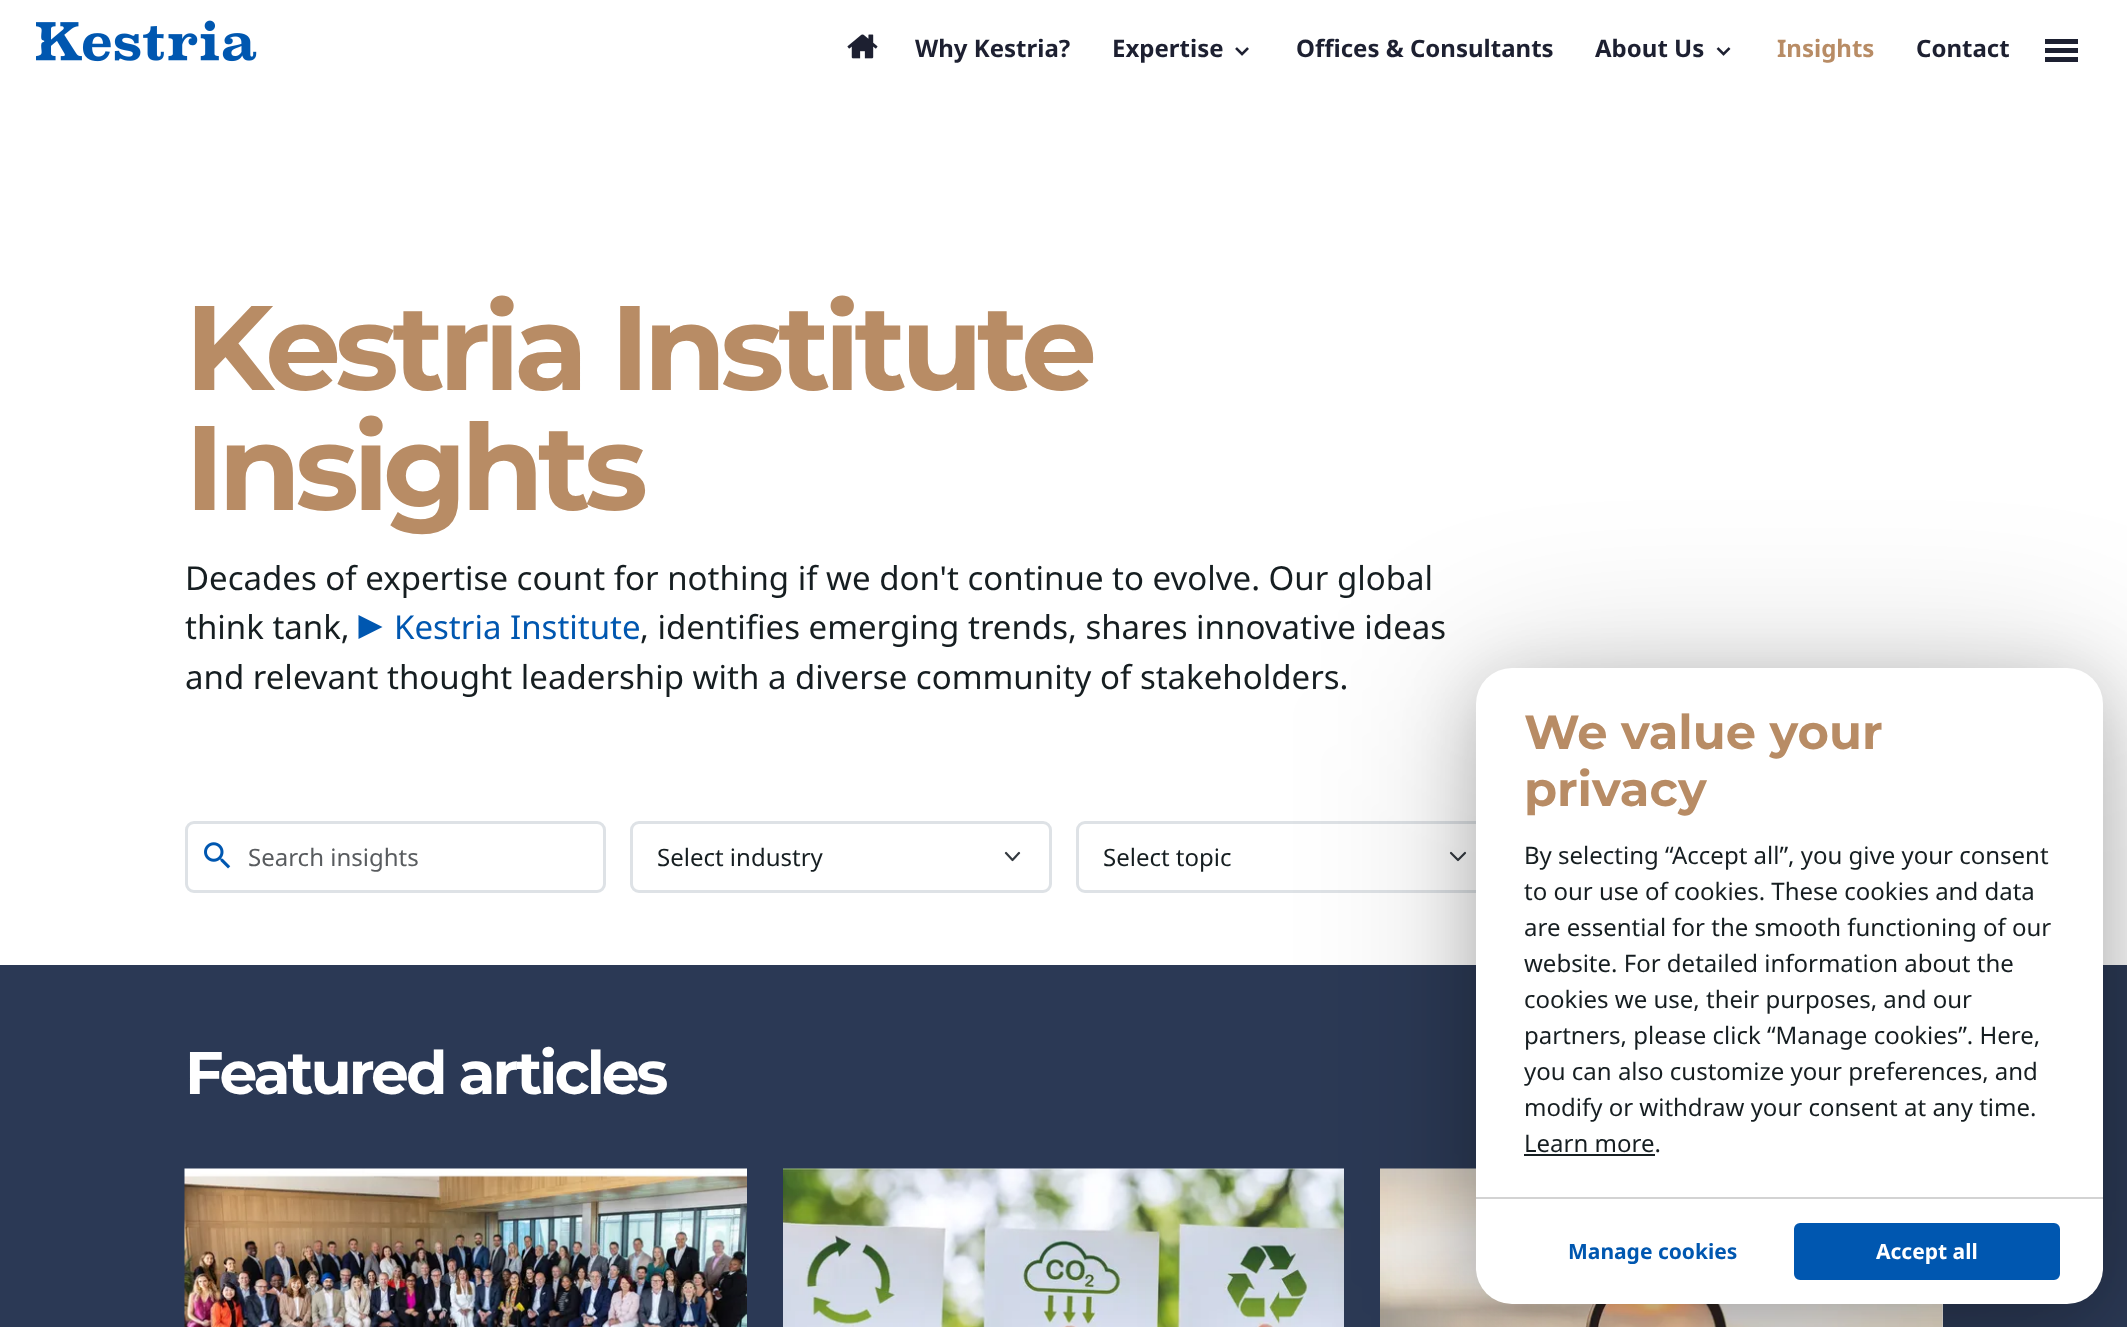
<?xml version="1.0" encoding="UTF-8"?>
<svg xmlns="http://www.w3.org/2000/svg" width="2127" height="1327">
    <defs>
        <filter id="blur1" x="-50%" y="-200%" width="200%" height="500%"><feGaussianBlur stdDeviation="88"/></filter>
        <filter id="blur2" x="-50%" y="-200%" width="200%" height="500%"><feGaussianBlur stdDeviation="35"/></filter>
    </defs>
    <rect width="100%" height="100%" fill="#FFFFFF"/>
    <image x="36" y="20" width="221" height="42" href="img_01.png"/>
    <image x="847" y="34" width="31" height="25" href="img_02.png"/>
    <text x="915" y="57" font-family="Noto Sans" font-size="24" font-weight="700" fill="#1D2031">Why Kestria?</text>
    <text x="1112" y="57" font-family="Noto Sans" font-size="24" font-weight="700" fill="#1D2031">Expertise</text>
    <image x="1235" y="47" width="14" height="9" href="img_03.png"/>
    <text x="1296" y="57" font-family="Noto Sans" font-size="24" font-weight="700" fill="#1D2031">Offices &amp; Consultants</text>
    <text x="1595" y="57" font-family="Noto Sans" font-size="24" font-weight="700" fill="#1D2031">About Us</text>
    <image x="1716" y="47" width="15" height="9" href="img_04.png"/>
    <text x="1777" y="57" font-family="Noto Sans" font-size="24" font-weight="700" fill="#B88C65">Insights</text>
    <text x="1916" y="57" font-family="Noto Sans" font-size="24" font-weight="700" fill="#1D2031">Contact</text>
    <rect x="2045" y="39" width="33" height="5" fill="#1D2031"/>
    <rect x="2045" y="48" width="33" height="5" fill="#1D2031"/>
    <rect x="2045" y="57" width="33" height="5" fill="#1D2031"/>
    <text font-family="Montserrat" font-size="120" font-weight="100" letter-spacing="-6" fill="#B88C65">
        <tspan x="185" y="390">Kestria Institute</tspan>
        <tspan x="185" y="510">Insights</tspan>
    </text>
    <text font-family="Noto Sans" font-size="33" fill="#161E21">
        <tspan x="185" y="590">Decades of expertise count for nothing if we don't continue to evolve. Our global</tspan>
        <tspan x="185" y="639">think tank,</tspan>
    </text>
    <path d="M 358.5 639 V 615 L 382.5 627 Z" fill="#0057B0"/>
    <text x="394" y="639" font-family="Noto Sans" font-size="33" fill="#0057B0">Kestria Institute</text>
    <text x="640" y="639" font-family="Noto Sans" font-size="33" fill="#161E21">, identifies emerging trends, shares innovative ideas</text>
    <text x="185" y="689" font-family="Noto Sans" font-size="33" fill="#161E21">and relevant thought leadership with a diverse community of stakeholders.</text>
    <rect x="186.5" y="822.5" width="418" height="69" rx="7.5" fill="none" stroke="#DEE2E6" stroke-width="3"/>
    <image x="204" y="842" width="27" height="27" href="img_05.png"/>
    <text x="248" y="866" font-family="Noto Sans" font-size="24" fill="#595C5F">Search insights</text>
    <path d="M 1006 853 L 1012.5 860 L 1019 853" fill="none" stroke="#343A40" stroke-width="2.2" stroke-linecap="round" stroke-linejoin="round"/>
    <rect x="631.5" y="822.5" width="419" height="69" rx="7.5" fill="none" stroke="#DEE2E6" stroke-width="3"/>
    <text x="657" y="866" font-family="Noto Sans" font-size="24" fill="#161E21">Select industry</text>
    <path d="M 1451 853 L 1458 860 L 1465 853" fill="none" stroke="#343A40" stroke-width="2.2" stroke-linecap="round" stroke-linejoin="round"/>
    <rect x="1077.5" y="822.5" width="418" height="69" rx="7.5" fill="none" stroke="#DEE2E6" stroke-width="3"/>
    <text x="1103" y="866" font-family="Noto Sans" font-size="24" fill="#161E21">Select topic</text>
    <rect x="0" y="965" width="2127" height="362" fill="#2B3955"/>
    <image x="783" y="1168" width="561" height="159" href="img_07.png"/>
    <rect x="1942" y="1304" width="1" height="23" fill="#FFFFFF"/>
    <image x="1380" y="1168" width="563" height="159" href="img_08.png"/>
    <rect x="1476" y="683" width="627" height="636" rx="36" fill="#000000" fill-opacity="0.2" filter="url(#blur1)"/>
    <rect x="1476" y="683" width="627" height="636" rx="36" fill="#000000" fill-opacity="0.2" filter="url(#blur2)"/>
    <rect x="1476" y="668" width="627" height="636" rx="36" fill="#FFFFFF"/>
    <text font-family="Montserrat" font-size="48" font-weight="100" fill="#B88C65">
        <tspan x="1524" y="749">We value your</tspan>
        <tspan x="1524" y="806">privacy</tspan>
    </text>
    <text font-family="Noto Sans" font-size="24" fill="#161E21">
        <tspan x="1524" y="864">By selecting “Accept all”, you give your consent</tspan>
        <tspan x="1524" y="900">to our use of cookies. These cookies and data</tspan>
        <tspan x="1524" y="936">are essential for the smooth functioning of our</tspan>
        <tspan x="1524" y="972">website. For detailed information about the</tspan>
        <tspan x="1524" y="1008">cookies we use, their purposes, and our</tspan>
        <tspan x="1524" y="1044">partners, please click “Manage cookies”. Here,</tspan>
        <tspan x="1524" y="1080">you can also customize your preferences, and</tspan>
        <tspan x="1524" y="1116">modify or withdraw your consent at any time.</tspan>
        <tspan x="1524" y="1152">Learn more.</tspan>
    </text>
    <rect x="1524" y="1154" width="131" height="2" fill="#161E21"/>
    <rect x="1476" y="1197" width="627" height="2" fill="#D3D3D3"/>
    <text x="1568" y="1259" font-family="Noto Sans" font-size="21" font-weight="700" fill="#0057B0">Manage cookies</text>
    <rect x="1795.5" y="1224.5" width="263" height="54" rx="4.5" fill="#0057B0" stroke="#0057B0" stroke-width="3"/>
    <text x="1876" y="1259" font-family="Noto Sans" font-size="21" font-weight="700" fill="#FFFFFF">Accept all</text>
    <text x="185" y="1094" font-family="Montserrat" font-size="60" font-weight="100" letter-spacing="-3" fill="#FFFFFF">Featured articles</text>
    <image x="184" y="1168" width="563" height="159" href="img_06.png"/>
</svg>
